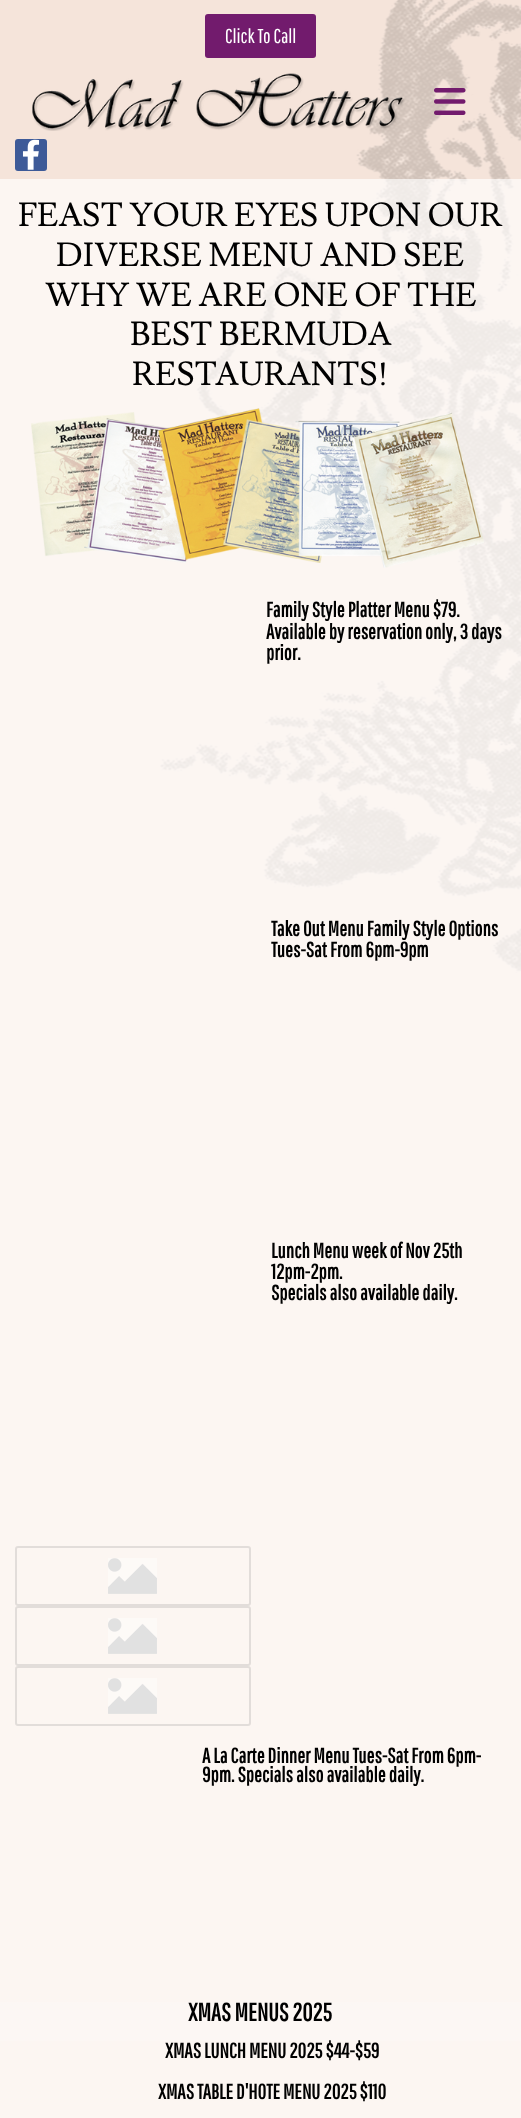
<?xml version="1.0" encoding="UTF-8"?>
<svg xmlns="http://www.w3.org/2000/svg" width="521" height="2118">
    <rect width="100%" height="100%" fill="#F5E4DA"/>
    <image x="160" y="0" width="361" height="973" href="img_01.png"/>
    <rect x="205" y="14" width="111" height="44" rx="3" fill="#721B6D"/>
    <text x="225" y="43" font-family="Pathway Gothic One" font-size="20" fill="#FFFFFF">Click To Call</text>
    <image x="32" y="73" width="373" height="58" href="img_02.png"/>
    <image x="434" y="88" width="32" height="27" href="img_03.png"/>
    <rect x="15" y="139" width="32" height="32" rx="3" fill="#3D5A98"/>
    <image x="22" y="139" width="18" height="31" href="img_04.png"/>
    <rect x="0" y="179" width="521" height="421" fill="#FFFFFF" fill-opacity="0.66"/>
    <text x="18" y="226" font-family="Lusitana" font-size="33" fill="#000000">FEAST YOUR EYES UPON OUR</text>
    <text x="56" y="266" font-family="Lusitana" font-size="33" fill="#000000">DIVERSE MENU AND SEE</text>
    <text x="45" y="306" font-family="Lusitana" font-size="33" fill="#000000">WHY WE ARE ONE OF THE</text>
    <text x="130" y="345" font-family="Lusitana" font-size="33" fill="#000000">BEST BERMUDA</text>
    <text x="132" y="385" font-family="Lusitana" font-size="33" fill="#000000">RESTAURANTS!</text>
    <image x="31" y="408" width="453" height="160" href="img_05.png"/>
    <rect x="0" y="600" width="521" height="1382" fill="#FFFFFF" fill-opacity="0.66"/>
    <text font-family="Pathway Gothic One" font-size="21" font-weight="700" fill="#000000">
        <tspan x="266" y="617">Family Style Platter Menu $79.</tspan>
        <tspan x="266" y="639">Available by reservation only, 3 days</tspan>
        <tspan x="266" y="660">prior.</tspan>
    </text>
    <text font-family="Pathway Gothic One" font-size="21" font-weight="700" fill="#000000">
        <tspan x="271" y="936">Take Out Menu Family Style Options</tspan>
        <tspan x="271" y="957">Tues-Sat From 6pm-9pm</tspan>
    </text>
    <text font-family="Pathway Gothic One" font-size="21" font-weight="700" fill="#000000">
        <tspan x="271" y="1258">Lunch Menu week of Nov 25th</tspan>
        <tspan x="271" y="1279">12pm-2pm.</tspan>
        <tspan x="271" y="1300">Specials also available daily.</tspan>
    </text>
    <image x="108" y="1558" width="49" height="36" href="img_06.png"/>
    <rect x="16" y="1547" width="234" height="58" rx="2" fill="none" stroke="#E2DDDA" stroke-width="2"/>
    <rect x="108" y="1558" width="49" height="36" fill="#FFFFFF" fill-opacity="0.25"/>
    <image x="108" y="1618" width="49" height="36" href="img_06.png"/>
    <rect x="16" y="1607" width="234" height="58" rx="2" fill="none" stroke="#E2DDDA" stroke-width="2"/>
    <rect x="108" y="1618" width="49" height="36" fill="#FFFFFF" fill-opacity="0.25"/>
    <image x="108" y="1678" width="49" height="36" href="img_06.png"/>
    <rect x="16" y="1667" width="234" height="58" rx="2" fill="none" stroke="#E2DDDA" stroke-width="2"/>
    <rect x="108" y="1678" width="49" height="36" fill="#FFFFFF" fill-opacity="0.25"/>
    <text font-family="Pathway Gothic One" font-size="21" font-weight="700" fill="#000000">
        <tspan x="202" y="1763">A La Carte Dinner Menu Tues-Sat From 6pm-</tspan>
        <tspan x="202" y="1782">9pm. Specials also available daily.</tspan>
    </text>
    <rect x="0" y="1982" width="521" height="20" fill="#FCF6F2"/>
    <rect x="0" y="2002" width="521" height="39" fill="#FCF7F4"/>
    <text x="188" y="2021" font-family="Pathway Gothic One" font-size="25" font-weight="700" fill="#000000">XMAS MENUS 2025</text>
    <rect x="0" y="2041" width="521" height="77" fill="#FCF6F2"/>
    <text x="165" y="2058" font-family="Pathway Gothic One" font-size="21" font-weight="700" fill="#000000">XMAS LUNCH MENU 2025 $44-$59</text>
    <text x="158" y="2099" font-family="Pathway Gothic One" font-size="21" font-weight="700" fill="#000000">XMAS TABLE D'HOTE MENU 2025 $110</text>
</svg>
